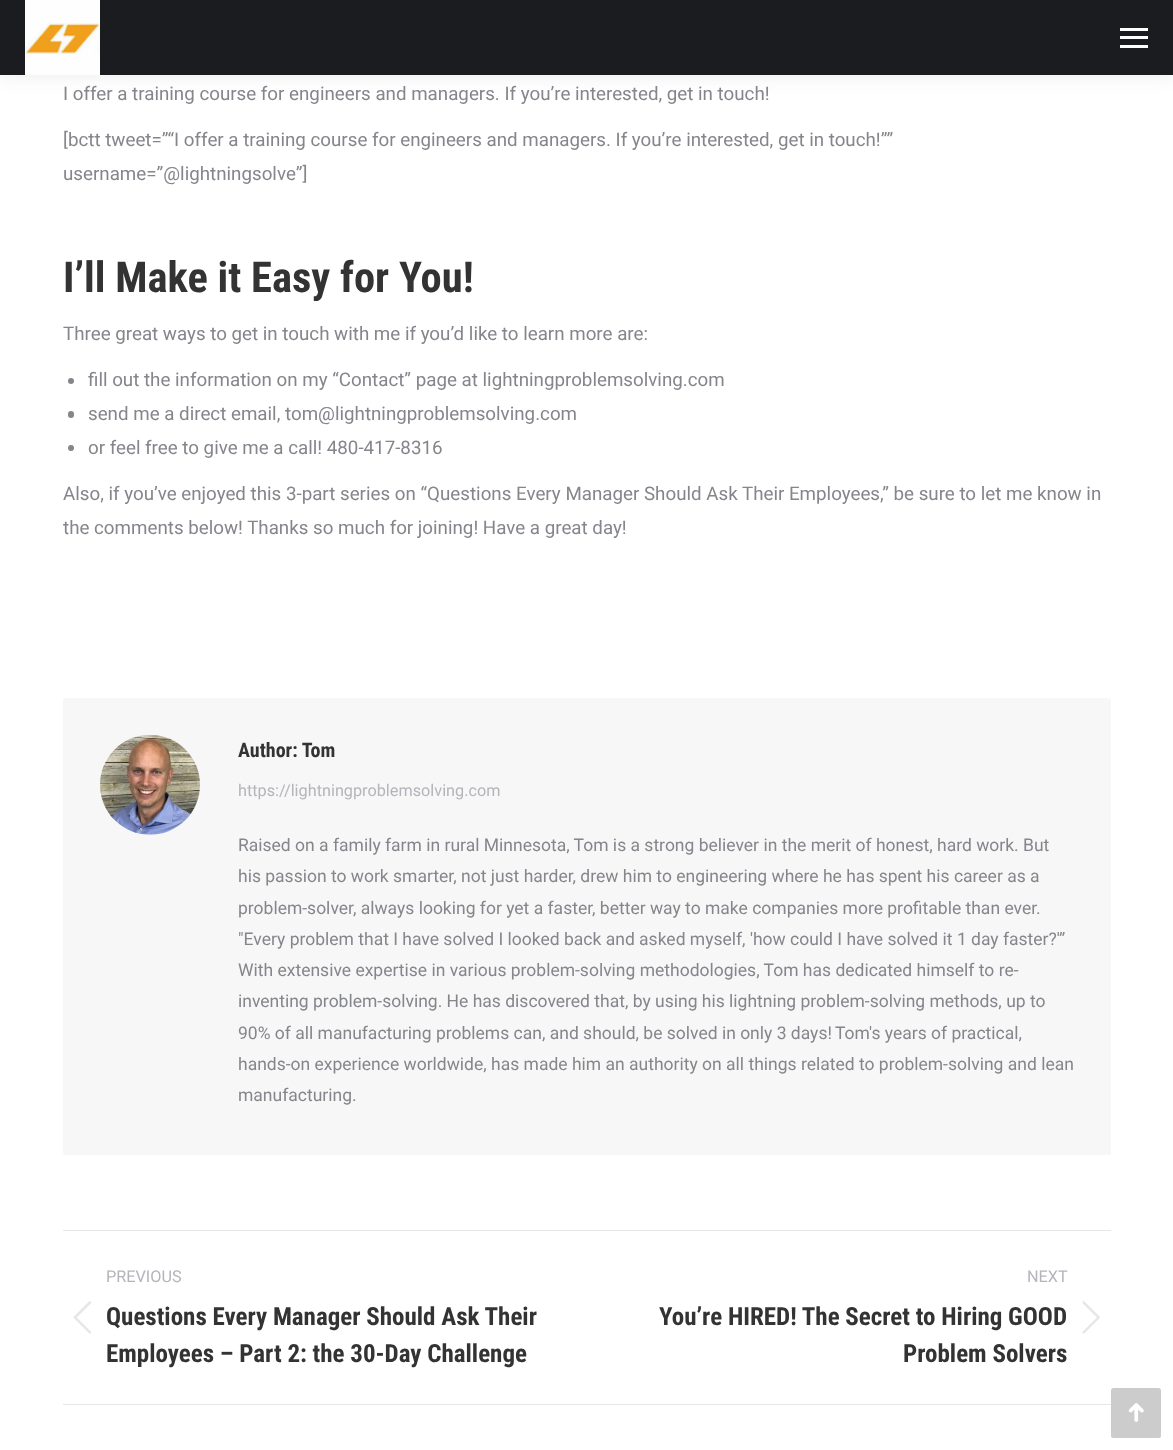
<?xml version="1.0" encoding="UTF-8"?>
<svg xmlns="http://www.w3.org/2000/svg" width="1173" height="1450">
    <defs>
        <filter id="blur1" x="-50%" y="-200%" width="200%" height="500%"><feGaussianBlur stdDeviation="9.5"/></filter>
    </defs>
    <rect width="100%" height="100%" fill="#FFFFFF"/>
    <rect x="-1" y="-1" width="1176" height="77" fill="#000000" fill-opacity="0.07" filter="url(#blur1)"/>
    <rect x="0" y="0" width="1173" height="75" fill="#1A1C20"/>
    <image x="25" y="0" width="75" height="75" href="img_01.png"/>
    <rect x="1120" y="28" width="28" height="3" fill="#FFFFFF"/>
    <rect x="1120" y="36" width="28" height="3" fill="#FFFFFF"/>
    <rect x="1120" y="45" width="28" height="3" fill="#FFFFFF"/>
    <text x="63" y="100" font-family="Roboto" font-size="18.75" fill="#85868C">I offer a training course for engineers and managers. If you’re interested, get in touch!</text>
    <text font-family="Roboto" font-size="18.75" fill="#85868C">
        <tspan x="63" y="146">[bctt tweet=”“I offer a training course for engineers and managers. If you’re interested, get in touch!””</tspan>
        <tspan x="63" y="180">username=”@lightningsolve”]</tspan>
    </text>
    <text x="63" y="292" font-family="Roboto Condensed" font-size="42.5" font-weight="700" fill="#333333">I’ll Make it Easy for You!</text>
    <text x="63" y="340" font-family="Roboto" font-size="18.75" fill="#85868C">Three great ways to get in touch with me if you’d like to learn more are:</text>
    <circle cx="71" cy="381" r="3" fill="#85868C"/>
    <text x="88" y="386" font-family="Roboto" font-size="18.75" fill="#85868C">fill out the information on my “Contact” page at lightningproblemsolving.com</text>
    <rect x="68" y="411" width="6" height="7" rx="3" fill="#85868C"/>
    <text x="88" y="420" font-family="Roboto" font-size="18.75" fill="#85868C">send me a direct email, tom@lightningproblemsolving.com</text>
    <circle cx="71" cy="448" r="3" fill="#85868C"/>
    <text x="88" y="454" font-family="Roboto" font-size="18.75" fill="#85868C">or feel free to give me a call! 480-417-8316</text>
    <text font-family="Roboto" font-size="18.75" fill="#85868C">
        <tspan x="63" y="500">Also, if you’ve enjoyed this 3-part series on “Questions Every Manager Should Ask Their Employees,” be sure to let me know in</tspan>
        <tspan x="63" y="534">the comments below! Thanks so much for joining! Have a great day!</tspan>
    </text>
    <rect x="63" y="698" width="1048" height="457" rx="2.5" fill="#F7F7F7"/>
    <image x="100" y="734" width="100" height="101" href="img_02.png"/>
    <text x="238" y="757" font-family="Roboto Condensed" font-size="20" font-weight="700" fill="#333333">Author: Tom</text>
    <text x="238" y="796" font-family="Roboto" font-size="16.25" fill="#B4B5BB">https://lightningproblemsolving.com</text>
    <text font-family="Roboto" font-size="17.5" fill="#85868C">
        <tspan x="238" y="851">Raised on a family farm in rural Minnesota, Tom is a strong believer in the merit of honest, hard work. But</tspan>
        <tspan x="238" y="882">his passion to work smarter, not just harder, drew him to engineering where he has spent his career as a</tspan>
        <tspan x="238" y="914">problem-solver, always looking for yet a faster, better way to make companies more profitable than ever.</tspan>
        <tspan x="238" y="945">"Every problem that I have solved I looked back and asked myself, 'how could I have solved it 1 day faster?'”</tspan>
        <tspan x="238" y="976">With extensive expertise in various problem-solving methodologies, Tom has dedicated himself to re-</tspan>
        <tspan x="238" y="1007">inventing problem-solving. He has discovered that, by using his lightning problem-solving methods, up to</tspan>
        <tspan x="238" y="1039">90% of all manufacturing problems can, and should, be solved in only 3 days!</tspan>
    </text>
    <text x="835" y="1039" font-family="Roboto" font-size="17.5" fill="#85868C">Tom's years of practical,</text>
    <text font-family="Roboto" font-size="17.5" fill="#85868C">
        <tspan x="238" y="1070">hands-on experience worldwide, has made him an authority on all things related to problem-solving and lean</tspan>
        <tspan x="238" y="1101">manufacturing.</tspan>
    </text>
    <rect x="63" y="1230" width="1048" height="1" fill="#E7E7E7"/>
    <rect x="63" y="1404" width="1048" height="1" fill="#E7E7E7"/>
    <text x="106" y="1282" font-family="Roboto" font-size="16.25" fill="#B4B5BB">PREVIOUS</text>
    <image x="73" y="1301" width="19" height="33" href="img_03.png"/>
    <text font-family="Roboto Condensed" font-size="25" font-weight="700" fill="#333333">
        <tspan x="106" y="1325">Questions Every Manager Should Ask Their</tspan>
        <tspan x="106" y="1362">Employees – Part 2: the 30-Day Challenge</tspan>
    </text>
    <text x="1027" y="1282" font-family="Roboto" font-size="16.25" fill="#B4B5BB">NEXT</text>
    <text x="659" y="1325" font-family="Roboto Condensed" font-size="25" font-weight="700" fill="#333333">You’re HIRED! The Secret to Hiring GOOD</text>
    <text x="903" y="1362" font-family="Roboto Condensed" font-size="25" font-weight="700" fill="#333333">Problem Solvers</text>
    <image x="1082" y="1301" width="18" height="33" href="img_04.png"/>
    <rect x="1111" y="1388" width="50" height="50" rx="2.5" fill="#CCCCCC"/>
    <image x="1128" y="1403" width="16" height="19" href="img_05.png"/>
</svg>
